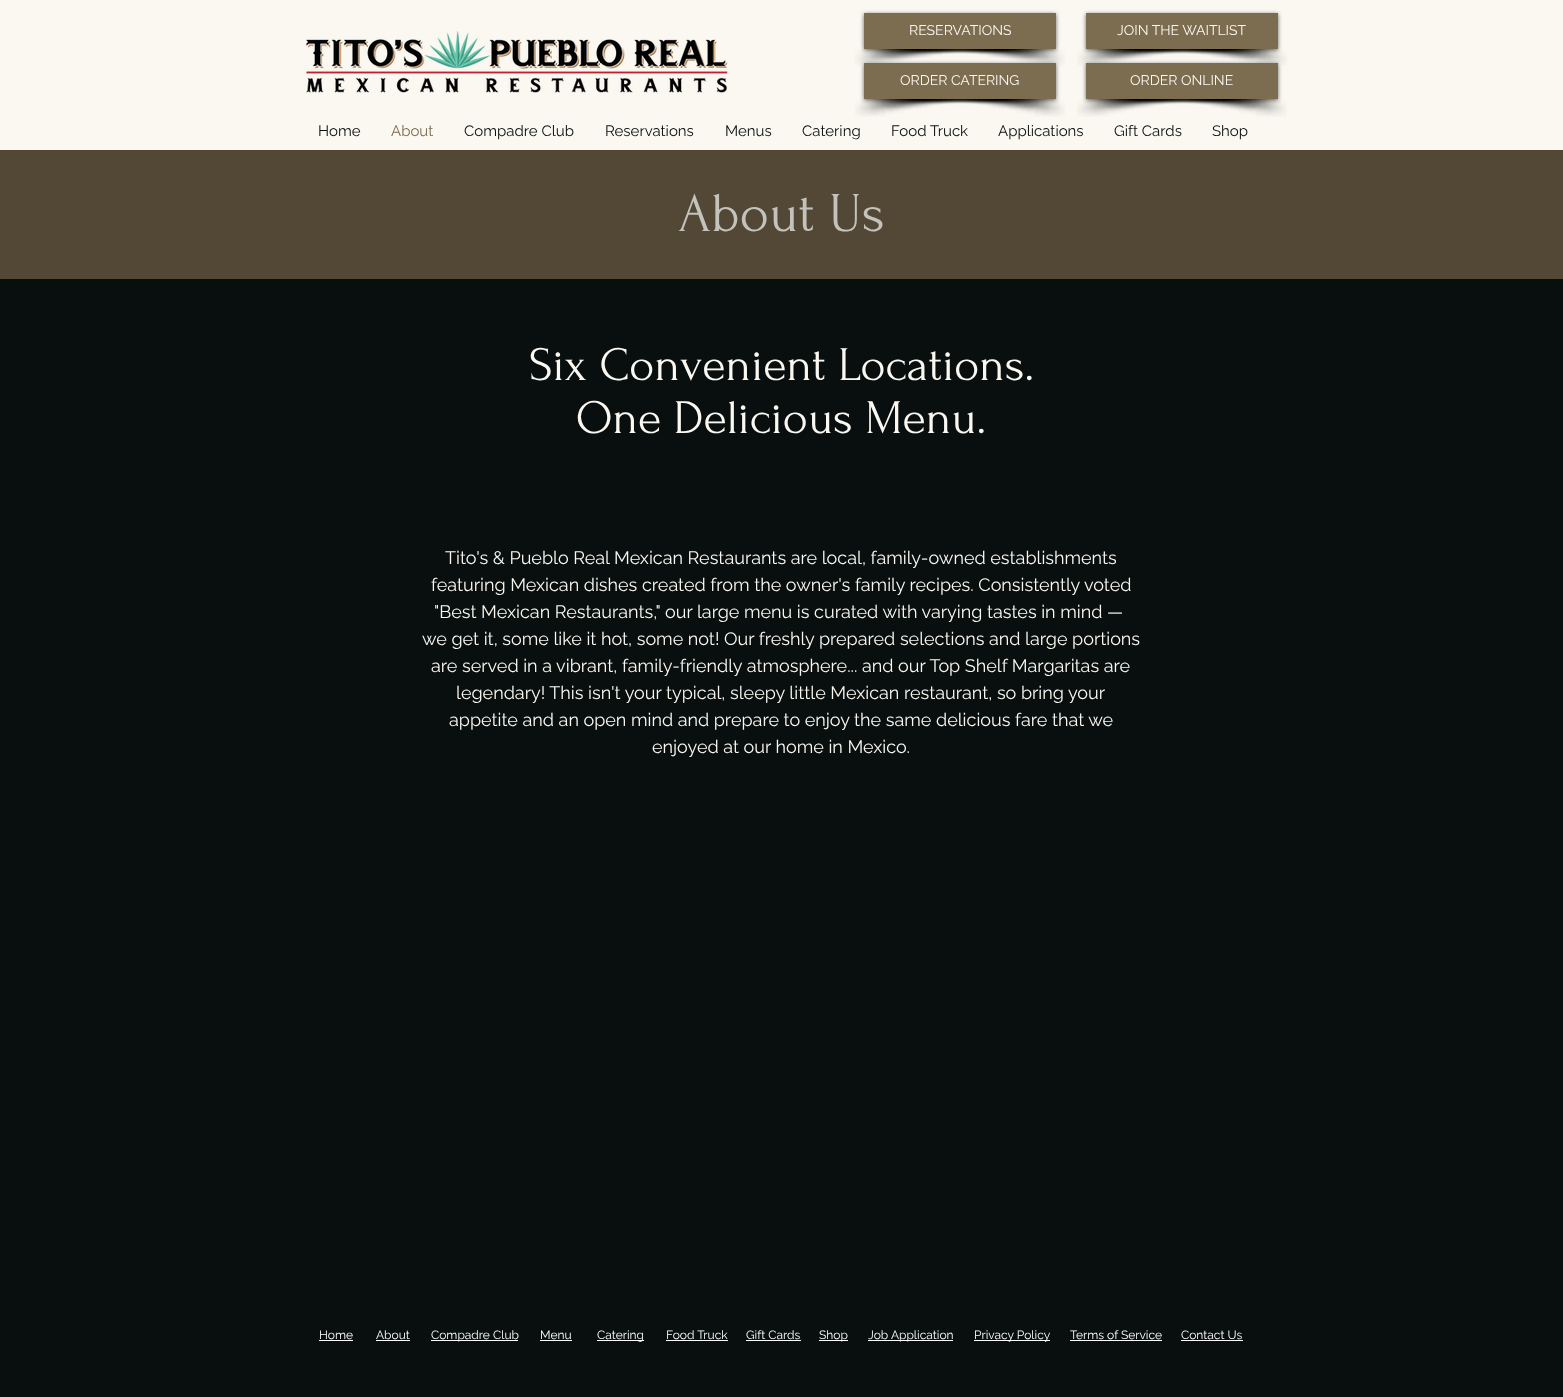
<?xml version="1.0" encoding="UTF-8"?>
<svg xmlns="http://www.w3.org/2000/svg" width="1563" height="1397">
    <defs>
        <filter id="blur1" x="-50%" y="-200%" width="200%" height="500%"><feGaussianBlur stdDeviation="2"/></filter>
    </defs>
    <rect width="100%" height="100%" fill="#090F0F"/>
    <rect x="0" y="0" width="1563" height="150" fill="#FAF8F1"/>
    <image x="855" y="49" width="154" height="17" href="img_01.png"/>
    <image x="936" y="49" width="129" height="17" href="img_02.png"/>
    <rect x="864" y="14" width="192" height="36" fill="#000000" fill-opacity="0.6" filter="url(#blur1)"/>
    <rect x="864" y="13" width="192" height="36" fill="#7C6C50"/>
    <text x="909" y="35" font-family="Raleway" font-size="14" fill="#FAF8F1">RESERVATIONS</text>
    <image x="1077" y="49" width="154" height="17" href="img_01.png"/>
    <image x="1158" y="49" width="129" height="17" href="img_02.png"/>
    <rect x="1086" y="14" width="192" height="36" fill="#000000" fill-opacity="0.6" filter="url(#blur1)"/>
    <rect x="1086" y="13" width="192" height="36" fill="#7C6C50"/>
    <text x="1117" y="35" font-family="Raleway" font-size="14" fill="#FAF8F1">JOIN THE WAITLIST</text>
    <image x="855" y="99" width="154" height="18" href="img_03.png"/>
    <image x="936" y="99" width="129" height="18" href="img_04.png"/>
    <rect x="864" y="64" width="192" height="36" fill="#000000" fill-opacity="0.6" filter="url(#blur1)"/>
    <rect x="864" y="63" width="192" height="36" fill="#7C6C50"/>
    <text x="900" y="85" font-family="Raleway" font-size="14" fill="#FAF8F1">ORDER CATERING</text>
    <image x="1077" y="99" width="154" height="18" href="img_03.png"/>
    <image x="1158" y="99" width="129" height="18" href="img_04.png"/>
    <rect x="1086" y="64" width="192" height="36" fill="#000000" fill-opacity="0.6" filter="url(#blur1)"/>
    <rect x="1086" y="63" width="192" height="36" fill="#7C6C50"/>
    <text x="1130" y="85" font-family="Raleway" font-size="14" fill="#FAF8F1">ORDER ONLINE</text>
    <image x="306" y="31" width="422" height="62" href="img_05.png"/>
    <text x="318" y="136" font-family="Raleway" font-size="15" fill="#090F0F">Home</text>
    <text x="391" y="136" font-family="Raleway" font-size="15" fill="#7C6C50">About</text>
    <text x="464" y="136" font-family="Raleway" font-size="15" fill="#090F0F">Compadre Club</text>
    <text x="605" y="136" font-family="Raleway" font-size="15" fill="#090F0F">Reservations</text>
    <text x="725" y="136" font-family="Raleway" font-size="15" fill="#090F0F">Menus</text>
    <text x="802" y="136" font-family="Raleway" font-size="15" fill="#090F0F">Catering</text>
    <text x="891" y="136" font-family="Raleway" font-size="15" fill="#090F0F">Food Truck</text>
    <text x="998" y="136" font-family="Raleway" font-size="15" fill="#090F0F">Applications</text>
    <text x="1114" y="136" font-family="Raleway" font-size="15" fill="#090F0F">Gift Cards</text>
    <text x="1212" y="136" font-family="Raleway" font-size="15" fill="#090F0F">Shop</text>
    <rect x="0" y="150" width="1563" height="129" fill="#534835"/>
    <text x="678" y="231" font-family="Forum" font-size="56" fill="#C3C2BC">About Us</text>
    <text x="529" y="380" font-family="Forum" font-size="48" fill="#FAF8F1">Six Convenient Locations.</text>
    <text x="576" y="433" font-family="Forum" font-size="48" fill="#FAF8F1">One Delicious Menu.</text>
    <text x="445" y="564" font-family="Raleway" font-size="18" fill="#FAF8F1">Tito's &amp; Pueblo Real Mexican Restaurants are local, family-owned establishments</text>
    <text x="431" y="591" font-family="Raleway" font-size="18" fill="#FAF8F1">featuring Mexican dishes created from the owner's family recipes. Consistently voted</text>
    <text x="434" y="618" font-family="Raleway" font-size="18" fill="#FAF8F1">"Best Mexican Restaurants," our large menu is curated with varying tastes in mind —</text>
    <text x="422" y="645" font-family="Raleway" font-size="18" fill="#FAF8F1">we get it, some like it hot, some not! Our freshly prepared selections and large portions</text>
    <text x="431" y="672" font-family="Raleway" font-size="18" fill="#FAF8F1">are served in a vibrant, family-friendly atmosphere... and our Top Shelf Margaritas are</text>
    <text x="456" y="699" font-family="Raleway" font-size="18" fill="#FAF8F1">legendary! This isn't your typical, sleepy little Mexican restaurant, so bring your</text>
    <text x="449" y="726" font-family="Raleway" font-size="18" fill="#FAF8F1">appetite and an open mind and prepare to enjoy the same delicious fare that we</text>
    <text x="652" y="753" font-family="Raleway" font-size="18" fill="#FAF8F1">enjoyed at our home in Mexico.</text>
    <text x="319" y="1339" font-family="Raleway" font-size="12" fill="#FFFFFF">Home</text>
    <rect x="319" y="1340" width="34" height="1" fill="#FFFFFF"/>
    <text x="376" y="1339" font-family="Raleway" font-size="12" fill="#FFFFFF">About</text>
    <rect x="376" y="1340" width="34" height="1" fill="#FFFFFF"/>
    <rect x="431" y="1340" width="87" height="1" fill="#FFFFFF"/>
    <text x="431" y="1339" font-family="Raleway" font-size="12" fill="#FFFFFF">Compadre Club</text>
    <text x="540" y="1339" font-family="Raleway" font-size="12" fill="#FFFFFF">Menu</text>
    <rect x="540" y="1340" width="32" height="1" fill="#FFFFFF"/>
    <rect x="597" y="1340" width="47" height="1" fill="#FFFFFF"/>
    <text x="597" y="1339" font-family="Raleway" font-size="12" fill="#FFFFFF">Catering</text>
    <text x="666" y="1339" font-family="Raleway" font-size="12" fill="#FFFFFF">Food Truck</text>
    <rect x="666" y="1340" width="62" height="1" fill="#FFFFFF"/>
    <text x="746" y="1339" font-family="Raleway" font-size="12" fill="#FFFFFF">Gift Cards</text>
    <rect x="746" y="1340" width="55" height="1" fill="#FFFFFF"/>
    <rect x="819" y="1340" width="29" height="1" fill="#FFFFFF"/>
    <text x="819" y="1339" font-family="Raleway" font-size="12" fill="#FFFFFF">Shop</text>
    <rect x="868" y="1340" width="85" height="1" fill="#FFFFFF"/>
    <text x="868" y="1339" font-family="Raleway" font-size="12" fill="#FFFFFF">Job Application</text>
    <rect x="974" y="1340" width="76" height="1" fill="#FFFFFF"/>
    <text x="974" y="1339" font-family="Raleway" font-size="12" fill="#FFFFFF">Privacy Policy</text>
    <text x="1070" y="1339" font-family="Raleway" font-size="12" fill="#FFFFFF">Terms of Service</text>
    <rect x="1070" y="1340" width="92" height="1" fill="#FFFFFF"/>
    <text x="1181" y="1339" font-family="Raleway" font-size="12" fill="#FFFFFF">Contact Us</text>
    <rect x="1181" y="1340" width="62" height="1" fill="#FFFFFF"/>
</svg>
